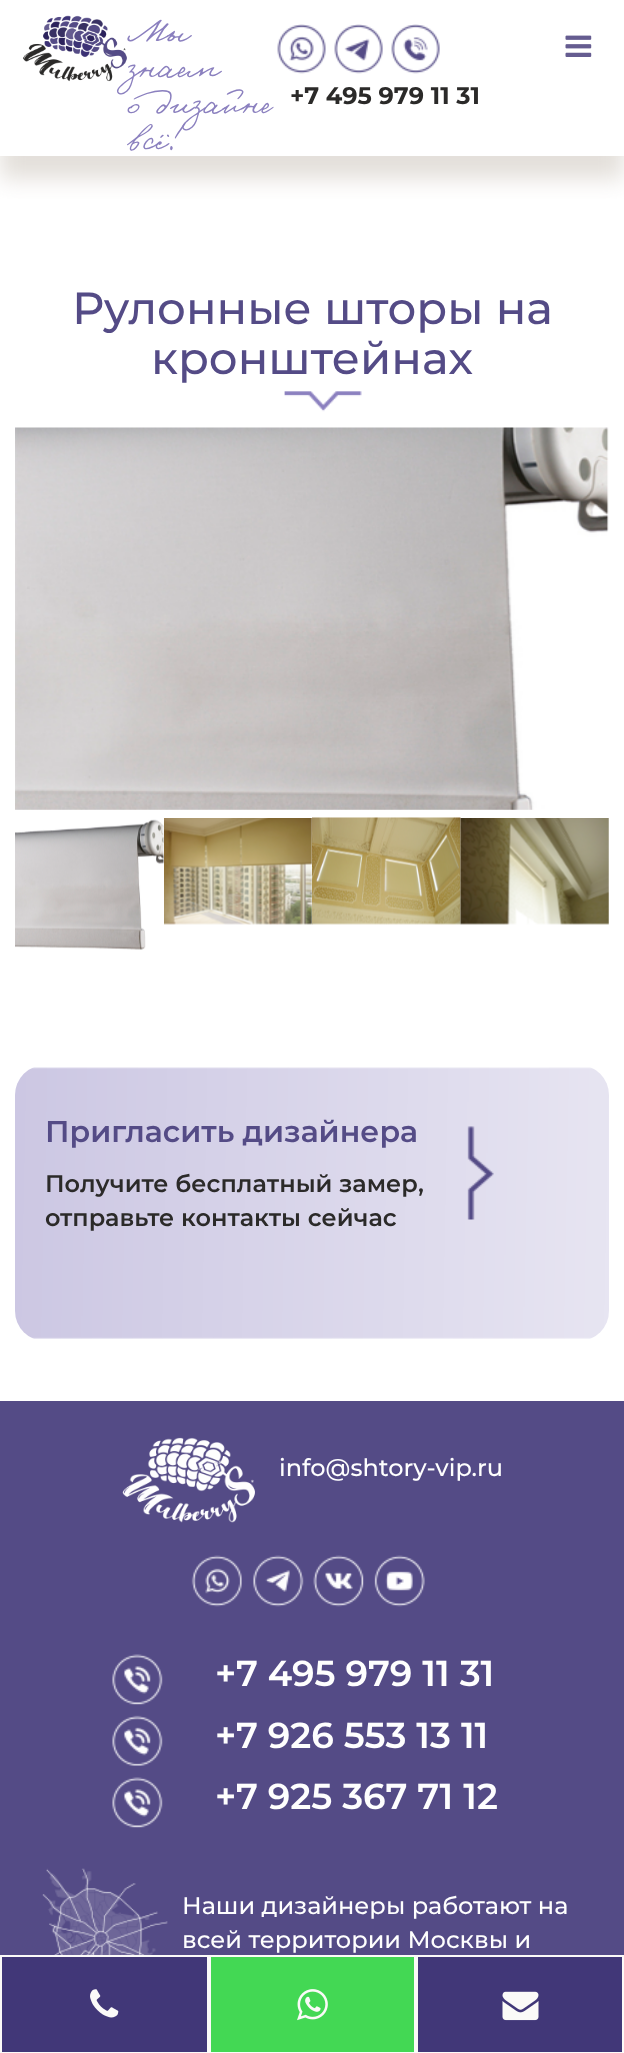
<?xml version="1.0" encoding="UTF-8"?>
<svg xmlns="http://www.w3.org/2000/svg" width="624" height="2053">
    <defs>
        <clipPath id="clip1"><rect x="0" y="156" width="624" height="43"/></clipPath>
        <filter id="blur1" x="-50%" y="-200%" width="200%" height="500%"><feGaussianBlur stdDeviation="11"/></filter>
    </defs>
    <rect width="100%" height="100%" fill="#FFFFFF"/>
    <g clip-path="url(#clip1)">
        <rect x="0" y="23" width="624" height="156" fill="#D1CAC1" fill-opacity="0.6" filter="url(#blur1)"/>
    </g>
    <image x="23" y="15" width="104" height="67" href="img_01.png"/>
    <text font-family="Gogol" font-size="36" fill="#8B80BF">
        <tspan x="128" y="41">Мы</tspan>
        <tspan x="128" y="77">знаем</tspan>
        <tspan x="128" y="113">о дизайне</tspan>
        <tspan x="128" y="149">всё!</tspan>
    </text>
    <image x="277" y="24" width="49" height="50" href="img_02.png"/>
    <image x="334" y="24" width="49" height="50" href="img_03.png"/>
    <image x="391" y="24" width="49" height="50" href="img_04.png"/>
    <text x="290" y="104" font-family="Montserrat" font-size="24" font-weight="700" fill="#2B2A29">+7 495 979 11 31</text>
    <image x="565" y="35" width="27" height="22" href="img_05.png"/>
    <text x="72" y="324" font-family="Montserrat" font-size="45" font-weight="500" fill="#544B86">Рулонные шторы на</text>
    <text x="151" y="374" font-family="Montserrat" font-size="45" font-weight="500" fill="#544B86">кронштейнах</text>
    <image x="284" y="391" width="78" height="21" href="img_06.png"/>
    <image x="15" y="427" width="594" height="383" href="img_07.png"/>
    <image x="15" y="819" width="149" height="131" href="img_08.png"/>
    <image x="164" y="818" width="149" height="107" href="img_09.png"/>
    <image x="312" y="817" width="149" height="108" href="img_10.png"/>
    <image x="460" y="818" width="149" height="107" href="img_11.png"/>
    <image x="15" y="1067" width="594" height="272" href="img_12.png"/>
    <text x="45" y="1142" font-family="Montserrat" font-size="30" font-weight="600" fill="#544B86">Пригласить дизайнера</text>
    <image x="467" y="1126" width="27" height="94" href="img_13.png"/>
    <text font-family="Montserrat" font-size="24" font-weight="600" fill="#2B2A29">
        <tspan x="45" y="1192">Получите бесплатный замер,</tspan>
        <tspan x="45" y="1226">отправьте контакты сейчас</tspan>
    </text>
    <rect x="0" y="1401" width="624" height="554" fill="#544B86"/>
    <image x="122" y="1437" width="133" height="86" href="img_14.png"/>
    <text x="279" y="1476" font-family="Montserrat" font-size="24" font-weight="500" fill="#FEFEFE">info@shtory-vip.ru</text>
    <image x="191" y="1555" width="51" height="52" href="img_15.png"/>
    <image x="253" y="1555" width="51" height="52" href="img_16.png"/>
    <image x="313" y="1555" width="51" height="52" href="img_17.png"/>
    <image x="374" y="1555" width="51" height="52" href="img_18.png"/>
    <image x="112" y="1654" width="51" height="51" href="img_19.png"/>
    <text x="215" y="1686" font-family="Montserrat" font-size="36" font-weight="600" fill="#FEFEFE">+7 495 979 11 31</text>
    <image x="112" y="1715" width="51" height="51" href="img_20.png"/>
    <text x="215" y="1748" font-family="Montserrat" font-size="36" font-weight="600" fill="#FEFEFE">+7 926 553 13 11</text>
    <image x="112" y="1777" width="51" height="51" href="img_19.png"/>
    <text x="215" y="1809" font-family="Montserrat" font-size="36" font-weight="600" fill="#FEFEFE">+7 925 367 71 12</text>
    <image x="42" y="1868" width="126" height="87" href="img_21.png"/>
    <text font-family="Montserrat" font-size="24" font-weight="500" fill="#FEFEFE">
        <tspan x="182" y="1914">Наши дизайнеры работают на</tspan>
        <tspan x="182" y="1948">всей территории Москвы и</tspan>
    </text>
    <rect x="1" y="1956" width="207" height="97" fill="#413778" stroke="#FBFAF8" stroke-width="2"/>
    <image x="90" y="1989" width="29" height="29" href="img_22.png"/>
    <rect x="210" y="1956" width="205" height="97" fill="#43D854" stroke="#FBFAF8" stroke-width="2"/>
    <image x="297" y="1989" width="31" height="32" href="img_23.png"/>
    <rect x="417" y="1956" width="206" height="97" fill="#413778" stroke="#FBFAF8" stroke-width="2"/>
    <image x="502" y="1991" width="37" height="30" href="img_24.png"/>
</svg>
